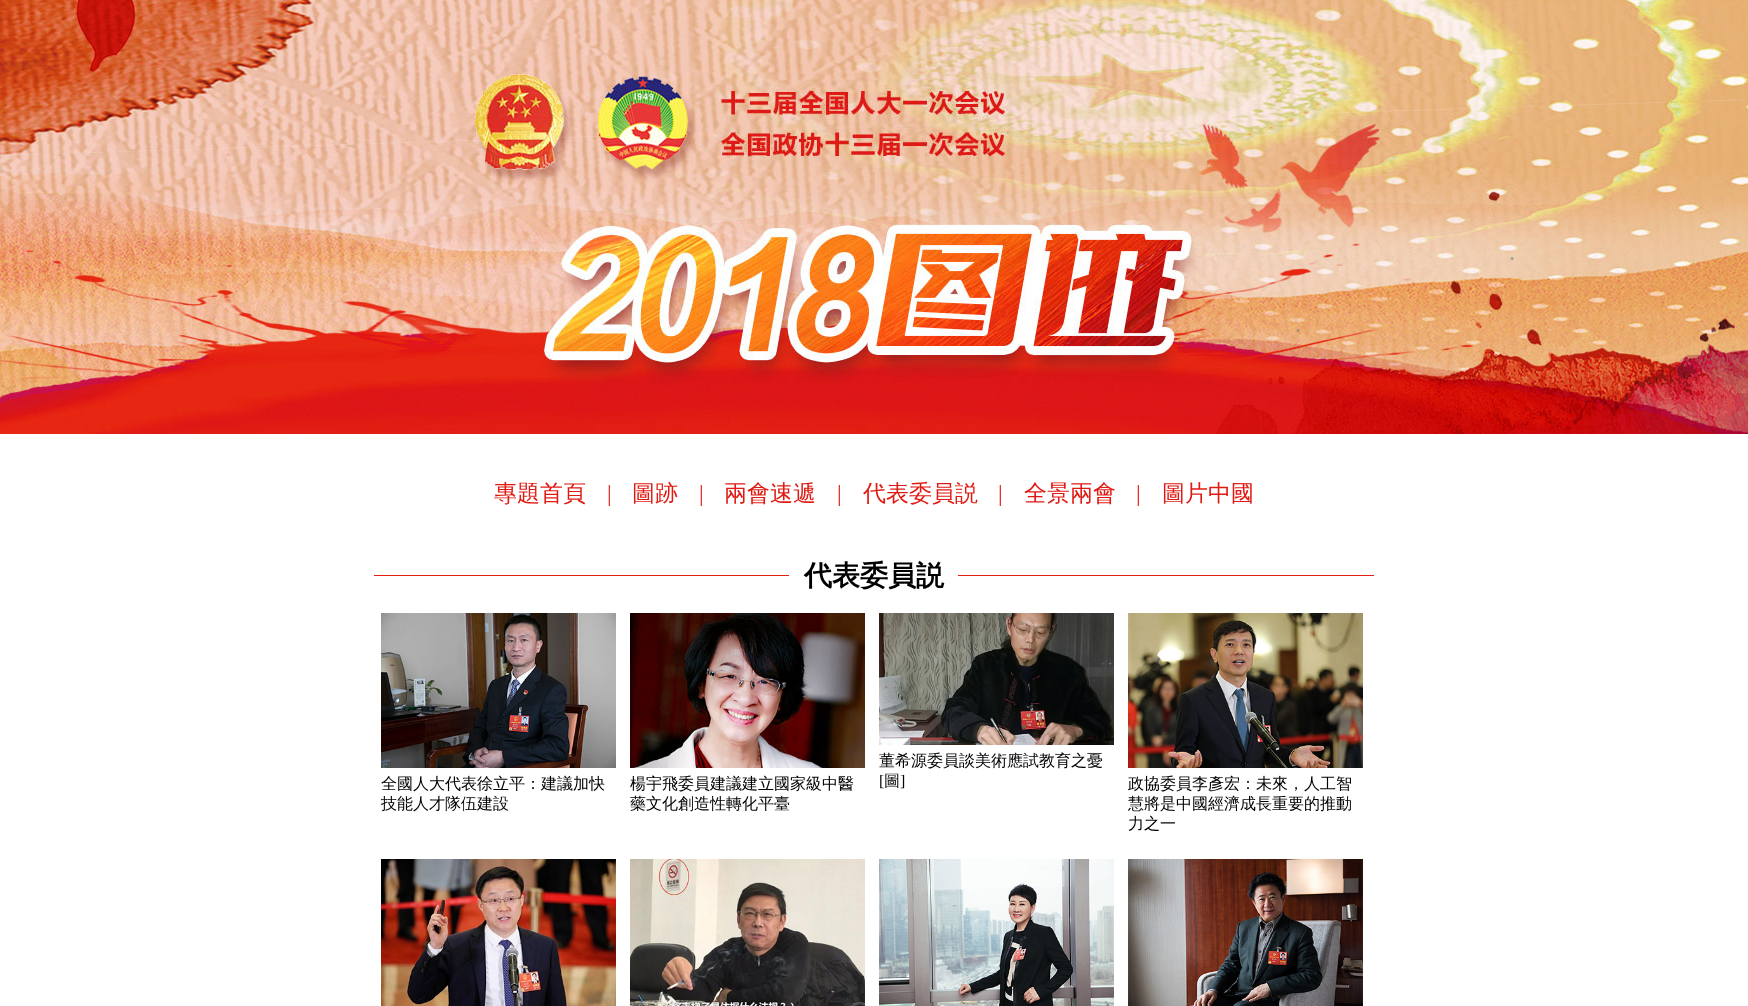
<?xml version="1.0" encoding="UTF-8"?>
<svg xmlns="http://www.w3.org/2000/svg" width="1748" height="1006">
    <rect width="100%" height="100%" fill="#FFFFFF"/>
    <image x="0" y="0" width="1748" height="434" href="img_01.png"/>
    <text x="494" y="501" font-family="WenQuanYi Zen Hei" font-size="23" font-weight="500" fill="#DF1A13">專題首頁</text>
    <text x="607" y="501" font-family="Liberation Serif" font-size="23" fill="#DF1A13">|</text>
    <text x="632" y="501" font-family="WenQuanYi Zen Hei" font-size="23" font-weight="500" fill="#DF1A13">圖跡</text>
    <text x="699" y="501" font-family="Liberation Serif" font-size="23" fill="#DF1A13">|</text>
    <text x="724" y="501" font-family="WenQuanYi Zen Hei" font-size="23" font-weight="500" fill="#DF1A13">兩會速遞</text>
    <text x="837" y="501" font-family="Liberation Serif" font-size="23" fill="#DF1A13">|</text>
    <text x="863" y="501" font-family="WenQuanYi Zen Hei" font-size="23" font-weight="500" fill="#DF1A13">代表委員説</text>
    <text x="998" y="501" font-family="Liberation Serif" font-size="23" fill="#DF1A13">|</text>
    <text x="1024" y="501" font-family="WenQuanYi Zen Hei" font-size="23" font-weight="500" fill="#DF1A13">全景兩會</text>
    <text x="1136" y="501" font-family="Liberation Serif" font-size="23" fill="#DF1A13">|</text>
    <text x="1162" y="501" font-family="WenQuanYi Zen Hei" font-size="23" font-weight="500" fill="#DF1A13">圖片中國</text>
    <image x="374" y="575" width="1000" height="1" href="img_02.png"/>
    <text x="804" y="585" font-family="WenQuanYi Zen Hei" font-size="28" font-weight="700" fill="#000000">代表委員説</text>
    <image x="879" y="613" width="235" height="132" href="img_03.png"/>
    <text x="879" y="766" font-family="WenQuanYi Zen Hei" font-size="16" font-weight="500" fill="#000000">董希源委員談美術應試教育之憂</text>
    <text x="879" y="786" font-family="Liberation Serif" font-size="16" fill="#000000">[</text>
    <text x="884" y="786" font-family="WenQuanYi Zen Hei" font-size="16" font-weight="500" fill="#000000">圖</text>
    <text x="900" y="786" font-family="Liberation Serif" font-size="16" fill="#000000">]</text>
    <image x="381" y="613" width="235" height="155" href="img_04.png"/>
    <text font-family="WenQuanYi Zen Hei" font-size="16" font-weight="500" fill="#000000">
        <tspan x="381" y="789">全國人大代表徐立平：建議加快</tspan>
        <tspan x="381" y="809">技能人才隊伍建設</tspan>
    </text>
    <image x="630" y="613" width="235" height="155" href="img_05.png"/>
    <text font-family="WenQuanYi Zen Hei" font-size="16" font-weight="500" fill="#000000">
        <tspan x="630" y="789">楊宇飛委員建議建立國家級中醫</tspan>
        <tspan x="630" y="809">藥文化創造性轉化平臺</tspan>
    </text>
    <image x="1128" y="613" width="235" height="155" href="img_06.png"/>
    <text font-family="WenQuanYi Zen Hei" font-size="16" font-weight="500" fill="#000000">
        <tspan x="1128" y="789">政協委員李彥宏：未來，人工智</tspan>
        <tspan x="1128" y="809">慧將是中國經濟成長重要的推動</tspan>
        <tspan x="1128" y="829">力之一</tspan>
    </text>
    <image x="381" y="859" width="235" height="147" href="img_07.png"/>
    <image x="630" y="859" width="235" height="147" href="img_08.png"/>
    <image x="879" y="859" width="235" height="147" href="img_09.png"/>
    <image x="1128" y="859" width="235" height="147" href="img_10.png"/>
</svg>
